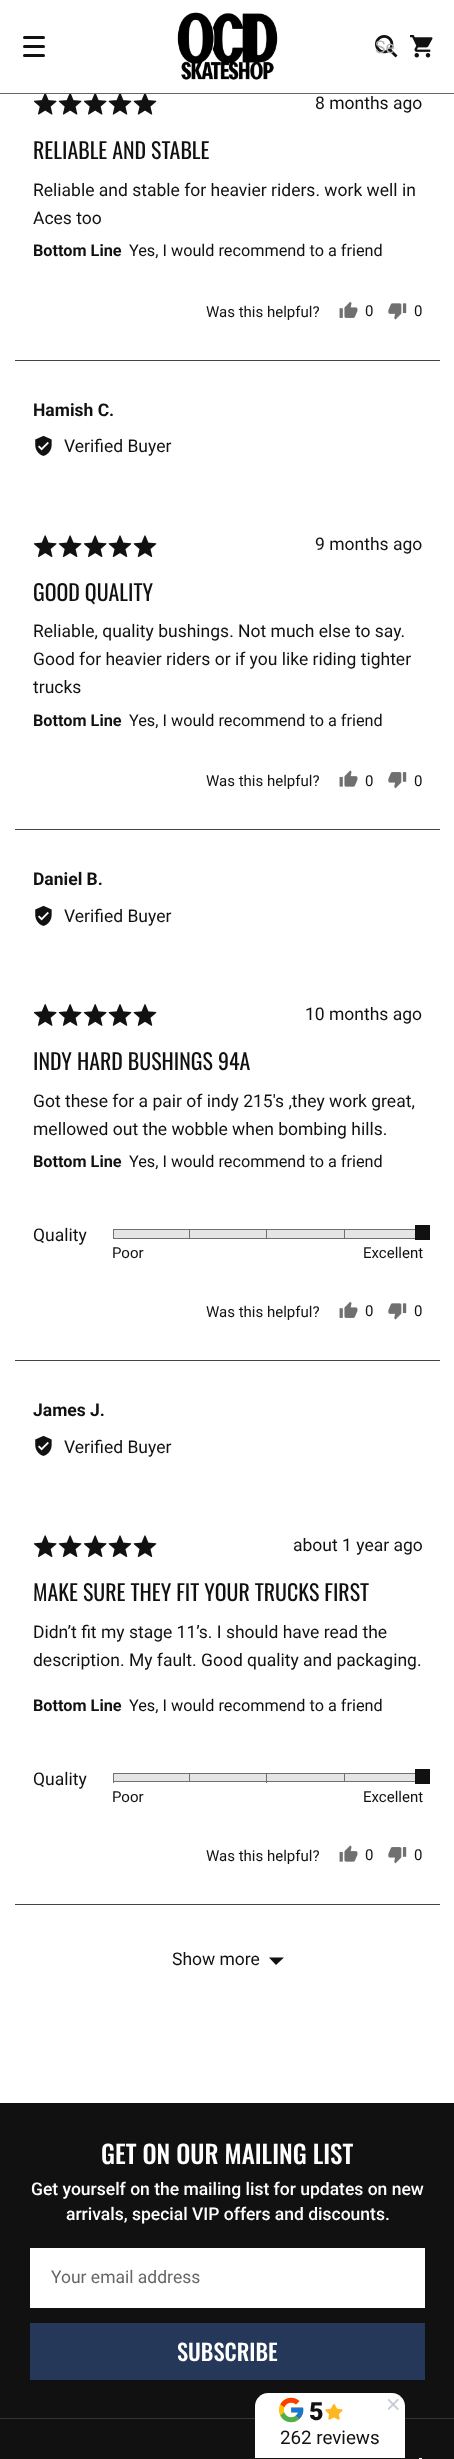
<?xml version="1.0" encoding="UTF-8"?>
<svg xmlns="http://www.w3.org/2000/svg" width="454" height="2459">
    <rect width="100%" height="100%" fill="#FFFFFF"/>
    <rect x="0" y="93" width="454" height="1" fill="#666666"/>
    <rect x="23" y="36" width="22" height="3" rx="1.5" fill="#111111"/>
    <rect x="23" y="45" width="22" height="3" rx="1.5" fill="#111111"/>
    <rect x="23" y="54" width="22" height="3" rx="1.5" fill="#111111"/>
    <image x="177" y="12" width="101" height="68" href="img_01.png"/>
    <image x="375" y="35" width="23" height="23" href="img_02.png"/>
    <text x="375" y="53" font-family="Roboto" font-size="17.5" fill="#B0B0B0">Se</text>
    <image x="410" y="35" width="23" height="23" href="img_03.png"/>
    <rect x="15" y="360" width="425" height="1" fill="#444444"/>
    <image x="34" y="94" width="123" height="21" href="img_05.png"/>
    <image x="33" y="94" width="124" height="21" href="img_04.png"/>
    <text x="315" y="109" font-family="Roboto" font-size="17.5" fill="#111111">8 months ago</text>
    <text x="33" y="159" font-family="Oswald" font-size="21.9" fill="#111111">RELIABLE AND STABLE</text>
    <text font-family="Roboto" font-size="17.5" fill="#111111">
        <tspan x="33" y="196">Reliable and stable for heavier riders. work well in</tspan>
        <tspan x="33" y="224">Aces too</tspan>
    </text>
    <text x="33" y="256" font-family="Roboto" font-size="16.25" font-weight="700" fill="#111111">Bottom Line</text>
    <text x="129" y="256" font-family="Roboto" font-size="16.25" fill="#111111">Yes, I would recommend to a friend</text>
    <text x="206" y="317" font-family="Roboto" font-size="15" fill="#111111">Was this helpful?</text>
    <image x="339" y="301" width="19" height="17" href="img_06.png"/>
    <text x="365" y="316" font-family="Roboto" font-size="15" fill="#111111">0</text>
    <image x="388" y="303" width="19" height="17" href="img_07.png"/>
    <text x="414" y="316" font-family="Roboto" font-size="15" fill="#111111">0</text>
    <rect x="15" y="829" width="425" height="1" fill="#444444"/>
    <text x="33" y="416" font-family="Roboto" font-size="17.5" font-weight="700" fill="#111111">Hamish C.</text>
    <image x="35" y="435" width="17" height="21" href="img_08.png"/>
    <text x="64" y="452" font-family="Roboto" font-size="17.5" fill="#111111">Verified Buyer</text>
    <image x="34" y="535" width="123" height="22" href="img_10.png"/>
    <image x="33" y="535" width="124" height="22" href="img_09.png"/>
    <text x="315" y="550" font-family="Roboto" font-size="17.5" fill="#111111">9 months ago</text>
    <text x="33" y="601" font-family="Oswald" font-size="21.9" fill="#111111">GOOD QUALITY</text>
    <text font-family="Roboto" font-size="17.5" fill="#111111">
        <tspan x="33" y="637">Reliable, quality bushings. Not much else to say.</tspan>
        <tspan x="33" y="665">Good for heavier riders or if you like riding tighter</tspan>
        <tspan x="33" y="693">trucks</tspan>
    </text>
    <text x="33" y="726" font-family="Roboto" font-size="16.25" font-weight="700" fill="#111111">Bottom Line</text>
    <text x="129" y="726" font-family="Roboto" font-size="16.25" fill="#111111">Yes, I would recommend to a friend</text>
    <text x="206" y="786" font-family="Roboto" font-size="15" fill="#111111">Was this helpful?</text>
    <image x="339" y="770" width="19" height="17" href="img_11.png"/>
    <text x="365" y="786" font-family="Roboto" font-size="15" fill="#111111">0</text>
    <image x="388" y="772" width="19" height="17" href="img_12.png"/>
    <text x="414" y="786" font-family="Roboto" font-size="15" fill="#111111">0</text>
    <rect x="15" y="1360" width="425" height="1" fill="#444444"/>
    <text x="33" y="885" font-family="Roboto" font-size="17.5" font-weight="700" fill="#111111">Daniel B.</text>
    <image x="35" y="905" width="17" height="21" href="img_08.png"/>
    <text x="64" y="922" font-family="Roboto" font-size="17.5" fill="#111111">Verified Buyer</text>
    <image x="34" y="1004" width="123" height="22" href="img_14.png"/>
    <image x="33" y="1004" width="124" height="22" href="img_13.png"/>
    <text x="305" y="1020" font-family="Roboto" font-size="17.5" fill="#111111">10 months ago</text>
    <text x="33" y="1070" font-family="Oswald" font-size="21.9" fill="#111111">INDY HARD BUSHINGS 94A</text>
    <text font-family="Roboto" font-size="17.5" fill="#111111">
        <tspan x="33" y="1107">Got these for a pair of indy 215's ,they work great,</tspan>
        <tspan x="33" y="1135">mellowed out the wobble when bombing hills.</tspan>
    </text>
    <text x="33" y="1167" font-family="Roboto" font-size="16.25" font-weight="700" fill="#111111">Bottom Line</text>
    <text x="129" y="1167" font-family="Roboto" font-size="16.25" fill="#111111">Yes, I would recommend to a friend</text>
    <text x="33" y="1241" font-family="Roboto" font-size="17.5" fill="#111111">Quality</text>
    <rect x="113" y="1229" width="310" height="1" fill="#707070"/>
    <rect x="266" y="1238" width="157" height="1" fill="#707070"/>
    <rect x="415" y="1225" width="15" height="15" fill="#111111"/>
    <rect x="114" y="1230" width="301" height="8" fill="#E5E5E5"/>
    <rect x="344" y="1230" width="1" height="8" fill="#707070"/>
    <rect x="266" y="1229" width="1" height="10" fill="#707070"/>
    <rect x="113" y="1238" width="155" height="1" fill="#707070"/>
    <rect x="113" y="1229" width="1" height="10" fill="#707070"/>
    <rect x="189" y="1230" width="1" height="8" fill="#707070"/>
    <text x="112" y="1258" font-family="Roboto" font-size="15" fill="#111111">Poor</text>
    <text x="363" y="1258" font-family="Roboto" font-size="15" fill="#111111">Excellent</text>
    <text x="206" y="1317" font-family="Roboto" font-size="15" fill="#111111">Was this helpful?</text>
    <image x="339" y="1301" width="19" height="17" href="img_06.png"/>
    <text x="365" y="1316" font-family="Roboto" font-size="15" fill="#111111">0</text>
    <image x="388" y="1303" width="19" height="17" href="img_07.png"/>
    <text x="414" y="1316" font-family="Roboto" font-size="15" fill="#111111">0</text>
    <rect x="15" y="1904" width="425" height="1" fill="#444444"/>
    <text x="33" y="1416" font-family="Roboto" font-size="17.5" font-weight="700" fill="#111111">James J.</text>
    <image x="35" y="1435" width="17" height="21" href="img_08.png"/>
    <text x="64" y="1453" font-family="Roboto" font-size="17.5" fill="#111111">Verified Buyer</text>
    <image x="34" y="1535" width="123" height="22" href="img_10.png"/>
    <image x="33" y="1535" width="124" height="22" href="img_09.png"/>
    <text x="293" y="1551" font-family="Roboto" font-size="17.5" fill="#111111">about 1 year ago</text>
    <text x="33" y="1601" font-family="Oswald" font-size="21.9" fill="#111111">MAKE SURE THEY FIT YOUR TRUCKS FIRST</text>
    <text font-family="Roboto" font-size="17.5" fill="#111111">
        <tspan x="33" y="1638">Didn’t fit my stage 11’s. I should have read the</tspan>
        <tspan x="33" y="1666">description. My fault. Good quality and packaging.</tspan>
    </text>
    <text x="33" y="1711" font-family="Roboto" font-size="16.25" font-weight="700" fill="#111111">Bottom Line</text>
    <text x="129" y="1711" font-family="Roboto" font-size="16.25" fill="#111111">Yes, I would recommend to a friend</text>
    <text x="33" y="1785" font-family="Roboto" font-size="17.5" fill="#111111">Quality</text>
    <rect x="113" y="1773" width="310" height="1" fill="#707070"/>
    <rect x="266" y="1781" width="157" height="1" fill="#707070"/>
    <rect x="113" y="1774" width="310" height="7" fill="#E5E5E5"/>
    <rect x="415" y="1769" width="15" height="15" fill="#111111"/>
    <rect x="344" y="1774" width="1" height="7" fill="#707070"/>
    <rect x="266" y="1773" width="1" height="10" fill="#707070"/>
    <rect x="113" y="1781" width="155" height="1" fill="#707070"/>
    <rect x="113" y="1773" width="1" height="10" fill="#707070"/>
    <rect x="189" y="1774" width="1" height="7" fill="#707070"/>
    <text x="112" y="1802" font-family="Roboto" font-size="15" fill="#111111">Poor</text>
    <text x="363" y="1802" font-family="Roboto" font-size="15" fill="#111111">Excellent</text>
    <text x="206" y="1861" font-family="Roboto" font-size="15" fill="#111111">Was this helpful?</text>
    <image x="339" y="1845" width="19" height="17" href="img_11.png"/>
    <text x="365" y="1860" font-family="Roboto" font-size="15" fill="#111111">0</text>
    <image x="388" y="1847" width="19" height="17" href="img_12.png"/>
    <text x="414" y="1860" font-family="Roboto" font-size="15" fill="#111111">0</text>
    <text x="172" y="1965" font-family="Roboto" font-size="17.5" fill="#111111">Show more</text>
    <path d="M 269 1957.5 H 284 L 276 1965 Z" fill="#111111"/>
    <rect x="0" y="2103" width="454" height="356" fill="#111111"/>
    <rect x="0" y="2418" width="454" height="1" fill="#343434"/>
    <text x="101" y="2164" font-family="Oswald" font-size="25" font-weight="500" fill="#FFFFFF">GET ON OUR MAILING LIST</text>
    <text x="31" y="2195" font-family="Roboto" font-size="17.5" font-weight="500" fill="#FFFFFF">Get yourself on the mailing list for updates on new</text>
    <text x="66" y="2220" font-family="Roboto" font-size="17.5" font-weight="500" fill="#FFFFFF">arrivals, special VIP offers and discounts.</text>
    <rect x="30" y="2248" width="395" height="60" fill="#FFFFFF"/>
    <text x="51" y="2283" font-family="Roboto" font-size="17.5" fill="#666666">Your email address</text>
    <rect x="30" y="2323" width="395" height="57" fill="#263859"/>
    <text x="177" y="2361" font-family="Oswald" font-size="22.5" font-weight="500" fill="#FFFFFF">SUBSCRIBE</text>
    <rect x="419" y="2458" width="3" height="1" fill="#FFFFFF"/>
    <path d="M 268 2393 H 392 C 399 2393 405 2399 405 2406 V 2458 H 255 V 2406 C 255 2399 261 2393 268 2393 Z" fill="#FFFFFF"/>
    <image x="279" y="2397" width="25" height="26" href="img_15.png"/>
    <text x="309" y="2420" font-family="Roboto" font-size="25" font-weight="900" fill="#111111">5</text>
    <image x="325" y="2404" width="18" height="16" href="img_16.png"/>
    <image x="388" y="2399" width="11" height="11" href="img_17.png"/>
    <text x="280" y="2444" font-family="Roboto" font-size="18.75" fill="#111111">262 reviews</text>
</svg>
